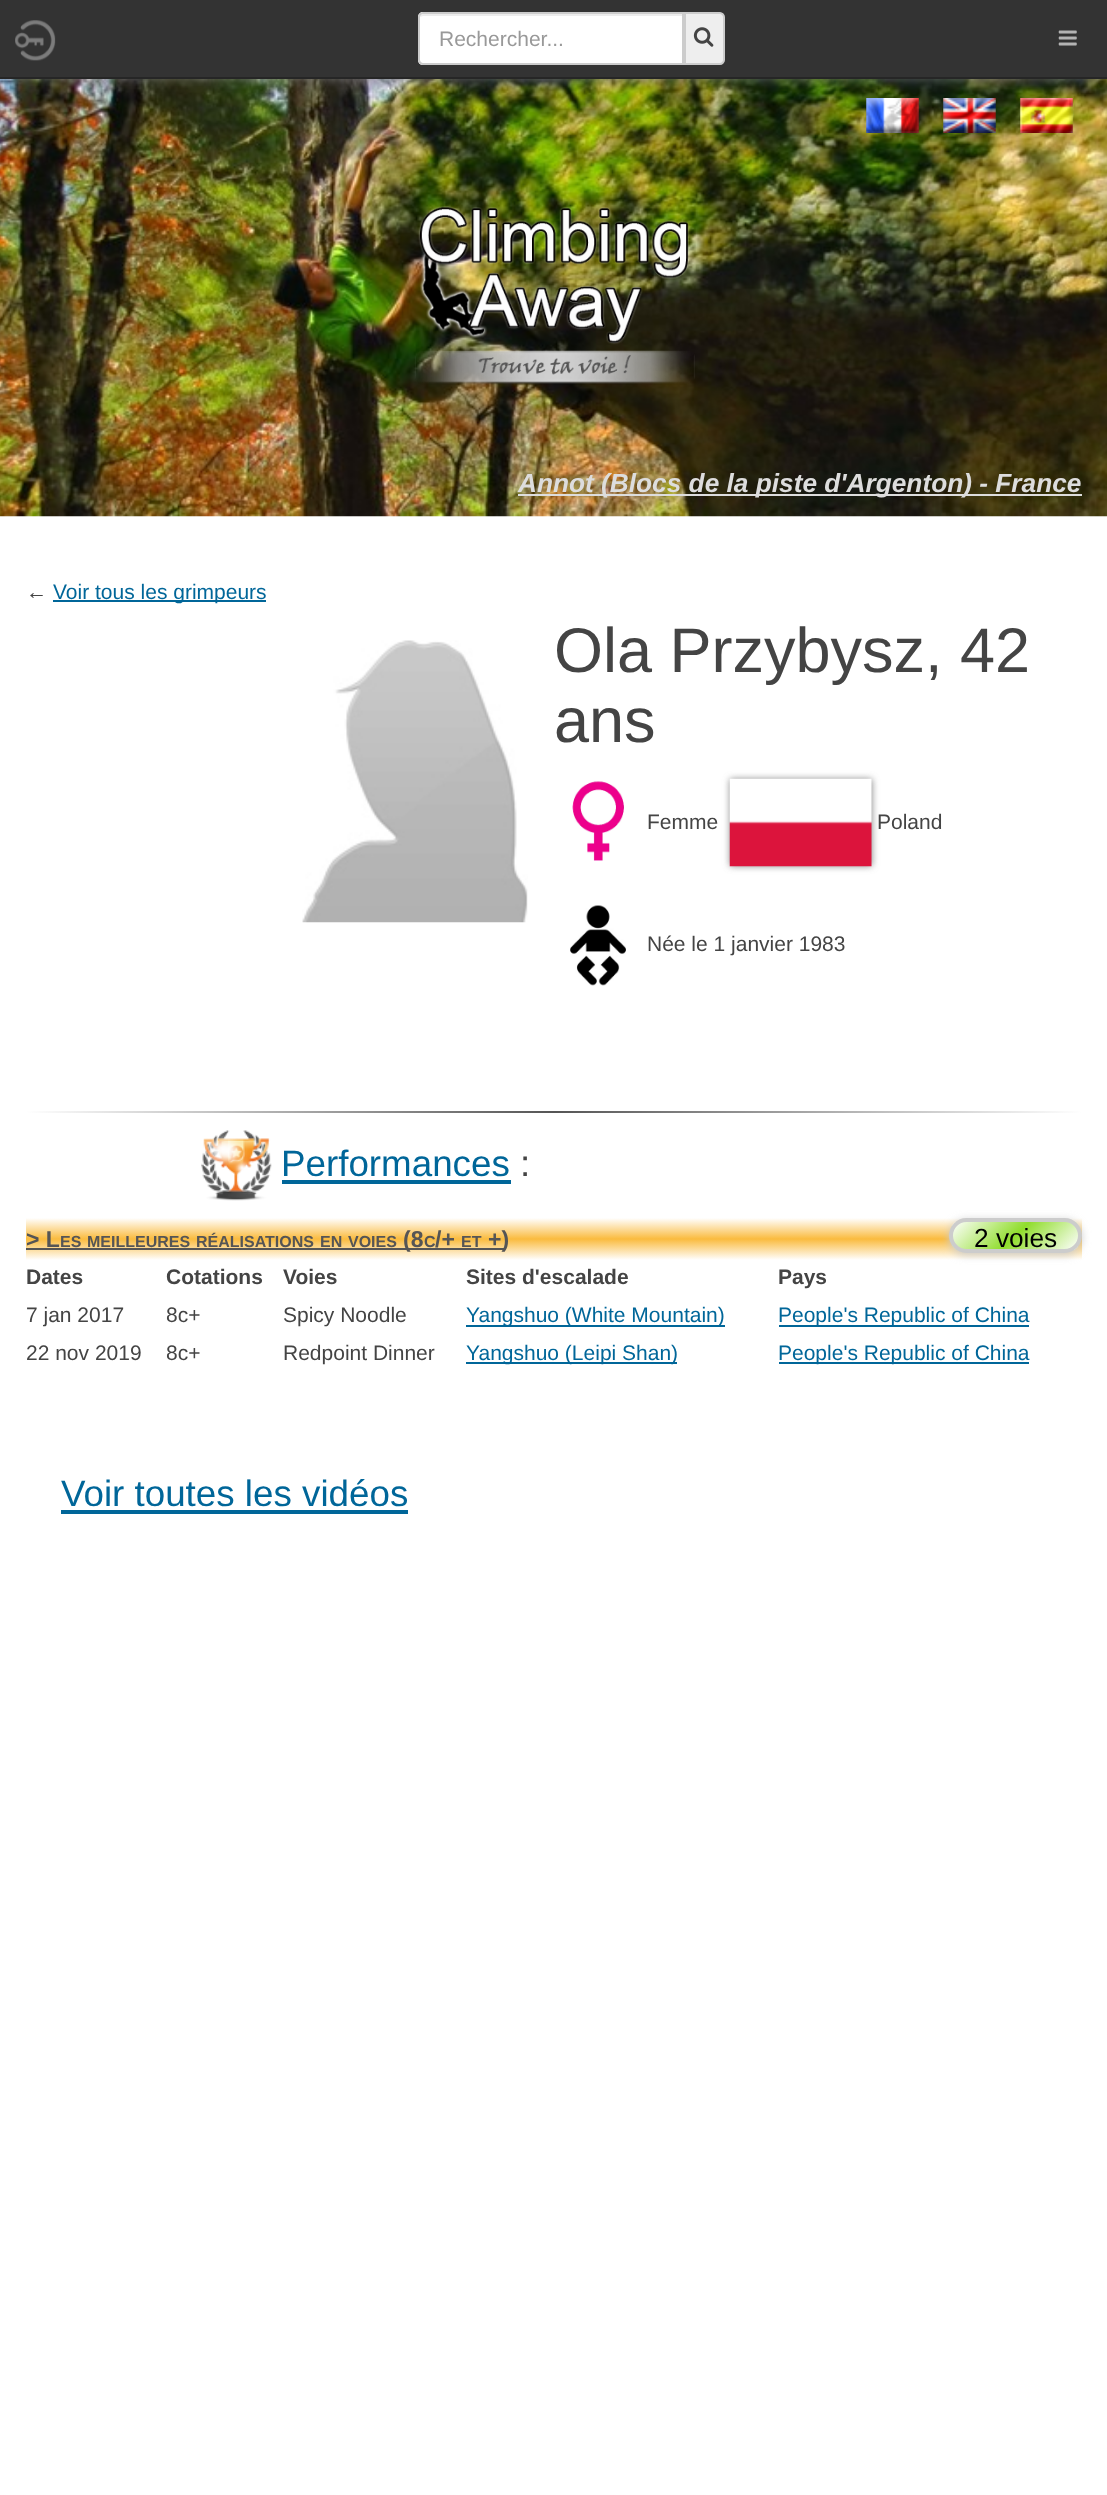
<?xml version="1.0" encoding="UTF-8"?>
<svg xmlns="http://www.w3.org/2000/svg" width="1107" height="2495">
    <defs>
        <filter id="blur1" x="-50%" y="-200%" width="200%" height="500%"><feGaussianBlur stdDeviation="7"/></filter>
        <filter id="blur2" x="-50%" y="-200%" width="200%" height="500%"><feGaussianBlur stdDeviation="3.5"/></filter>
        <linearGradient id="g1" gradientUnits="userSpaceOnUse" x1="26" y1="1112" x2="1082" y2="1112"><stop offset="0" stop-color="#FFFFFF"/><stop offset="0.5" stop-color="#555555"/><stop offset="1" stop-color="#FFFFFF"/></linearGradient>
        <linearGradient id="g2" gradientUnits="userSpaceOnUse" x1="554" y1="1218" x2="554" y2="1260"><stop offset="0" stop-color="#FFFFFF"/><stop offset="0.5" stop-color="#FABB3E"/><stop offset="1" stop-color="#FFFFFF"/></linearGradient>
        <filter id="blur3" x="-50%" y="-200%" width="200%" height="500%"><feGaussianBlur stdDeviation="4.5"/></filter>
        <clipPath id="clip1"><rect x="949" y="1218" width="133" height="35" rx="17.5"/></clipPath>
        <linearGradient id="g3" gradientUnits="userSpaceOnUse" x1="977" y1="1197" x2="1054" y2="1274"><stop offset="0" stop-color="#FFFFFF"/><stop offset="0.5" stop-color="#90DD2C"/><stop offset="1" stop-color="#FFFFFF"/></linearGradient>
    </defs>
    <rect width="100%" height="100%" fill="#FFFFFF"/>
    <image x="0" y="79" width="1107" height="438" href="img_04.png"/>
    <image x="866" y="98" width="53" height="35" href="img_05.png"/>
    <image x="943" y="98" width="53" height="35" href="img_06.png"/>
    <image x="1020" y="98" width="53" height="35" href="img_07.png"/>
    <rect x="12" y="23" width="1084" height="54" fill="#808080" filter="url(#blur1)"/>
    <rect x="0" y="0" width="1107" height="77" fill="#333333"/>
    <rect x="0" y="77" width="1107" height="2" fill="#262626"/>
    <image x="15" y="20" width="41" height="41" href="img_01.png"/>
    <path d="M 423 12 H 684 V 65 H 423 C 420 65 418 63 418 60 V 17 C 418 14 420 12 423 12 Z" fill="#FFFFFF"/>
    <path d="M 423 16 H 682 V 63 H 683 V 14 H 424 C 422 14 421 15 420 17 Z" fill="#ECECEC"/>
    <path d="M 423 13 H 683 V 64 H 423 C 421 64 419 62 419 60 V 17 C 419 15 421 13 423 13 Z" fill="none" stroke="#CCCCCC" stroke-width="2"/>
    <text x="439" y="46" font-family="Liberation Sans" font-size="21" fill="#999999">Rechercher...</text>
    <path d="M 685 13 H 720 C 722 13 724 15 724 17 V 60 C 724 62 722 64 720 64 H 685 Z" fill="#EEEEEE" stroke="#CCCCCC" stroke-width="2"/>
    <image x="693" y="27" width="21" height="20" href="img_02.png"/>
    <image x="1058" y="30" width="19" height="16" href="img_03.png"/>
    <image x="415" y="206" width="280" height="179" href="img_08.png"/>
    <rect x="518" y="494" width="564" height="2" fill="#DDDDDD"/>
    <text x="518" y="492" font-family="Liberation Sans" font-size="26.25" font-weight="700" font-style="italic" fill="#DDDDDD">Annot (Blocs de la piste d'Argenton) - France</text>
    <text x="26" y="599" font-family="Liberation Sans" font-size="21" fill="#444444">←</text>
    <rect x="53" y="600" width="213" height="2" fill="#006699"/>
    <text x="53" y="599" font-family="Liberation Sans" font-size="21" fill="#006699">Voir tous les grimpeurs</text>
    <image x="302" y="640" width="226" height="283" href="img_09.png"/>
    <text font-family="Liberation Sans" font-size="63" fill="#444444">
        <tspan x="554" y="672">Ola Przybysz, 42</tspan>
        <tspan x="554" y="742">ans</tspan>
    </text>
    <rect x="730" y="779" width="142" height="87" fill="#888888" filter="url(#blur2)"/>
    <image x="572" y="781" width="52" height="80" href="img_10.png"/>
    <text x="647" y="829" font-family="Liberation Sans" font-size="21" fill="#444444">Femme</text>
    <image x="729" y="778" width="143" height="89" href="img_11.png"/>
    <text x="877" y="829" font-family="Liberation Sans" font-size="21" fill="#444444">Poland</text>
    <image x="570" y="905" width="56" height="81" href="img_12.png"/>
    <text x="647" y="951" font-family="Liberation Sans" font-size="21" fill="#444444">Née le 1 janvier 1983</text>
    <rect x="26" y="1111" width="1056" height="2" fill="url(#g1)"/>
    <image x="201" y="1130" width="71" height="71" href="img_13.png"/>
    <text x="281" y="1176" font-family="Liberation Sans" font-size="36.75" fill="#006699">Performances</text>
    <rect x="282" y="1180" width="229" height="4" fill="#006699"/>
    <text x="520" y="1176" font-family="Liberation Sans" font-size="36.75" fill="#444444">:</text>
    <rect x="26" y="1218" width="1056" height="42" fill="url(#g2)"/>
    <text x="26" y="1247" font-family="Liberation Sans" font-size="23" font-weight="700" fill="#555555">&gt; L</text>
    <text x="60" y="1247" font-family="Liberation Sans" font-size="16" font-weight="700" fill="#555555">ES</text>
    <rect x="26" y="1248" width="478" height="2" fill="#555555"/>
    <text x="87" y="1247" font-family="Liberation Sans" font-size="16" font-weight="700" fill="#555555">MEILLEURES</text>
    <text x="196" y="1247" font-family="Liberation Sans" font-size="16" font-weight="700" fill="#555555">RÉALISATIONS</text>
    <text x="320" y="1247" font-family="Liberation Sans" font-size="16" font-weight="700" fill="#555555">EN</text>
    <text x="348" y="1247" font-family="Liberation Sans" font-size="16" font-weight="700" fill="#555555">VOIES</text>
    <text x="403" y="1247" font-family="Liberation Sans" font-size="23" font-weight="700" fill="#555555">(8</text>
    <text x="424" y="1247" font-family="Liberation Sans" font-size="16" font-weight="700" fill="#555555">C</text>
    <text x="435" y="1247" font-family="Liberation Sans" font-size="23" font-weight="700" fill="#555555">/+</text>
    <text x="461" y="1247" font-family="Liberation Sans" font-size="16" font-weight="700" fill="#555555">ET</text>
    <text x="488" y="1247" font-family="Liberation Sans" font-size="23" font-weight="700" fill="#555555">+)</text>
    <rect x="949" y="1220" width="133" height="35" rx="17.5" fill="#CCCCCC" filter="url(#blur3)"/>
    <g clip-path="url(#clip1)">
        <rect x="952" y="1222" width="126" height="28" fill="url(#g3)"/>
    </g>
    <rect x="951" y="1220" width="129" height="31" rx="15.5" fill="none" stroke="#CCCCCC" stroke-width="4"/>
    <text x="974" y="1247" font-family="Liberation Sans" font-size="26.25" fill="#000000">2 voies</text>
    <text x="26" y="1284" font-family="Liberation Sans" font-size="21" font-weight="700" fill="#444444">Dates</text>
    <text x="166" y="1284" font-family="Liberation Sans" font-size="21" font-weight="700" fill="#444444">Cotations</text>
    <text x="283" y="1284" font-family="Liberation Sans" font-size="21" font-weight="700" fill="#444444">Voies</text>
    <text x="466" y="1284" font-family="Liberation Sans" font-size="21" font-weight="700" fill="#444444">Sites d'escalade</text>
    <text x="778" y="1284" font-family="Liberation Sans" font-size="21" font-weight="700" fill="#444444">Pays</text>
    <text x="26" y="1322" font-family="Liberation Sans" font-size="21" fill="#444444">7 jan 2017</text>
    <text x="166" y="1322" font-family="Liberation Sans" font-size="21" fill="#444444">8c+</text>
    <text x="283" y="1322" font-family="Liberation Sans" font-size="21" fill="#444444">Spicy Noodle</text>
    <rect x="466" y="1325" width="259" height="2" fill="#006699"/>
    <text x="466" y="1322" font-family="Liberation Sans" font-size="21" fill="#006699">Yangshuo (White Mountain)</text>
    <rect x="779" y="1325" width="250" height="2" fill="#006699"/>
    <text x="778" y="1322" font-family="Liberation Sans" font-size="21" fill="#006699">People's Republic of China</text>
    <text x="26" y="1360" font-family="Liberation Sans" font-size="21" fill="#444444">22 nov 2019</text>
    <text x="166" y="1360" font-family="Liberation Sans" font-size="21" fill="#444444">8c+</text>
    <text x="283" y="1360" font-family="Liberation Sans" font-size="21" fill="#444444">Redpoint Dinner</text>
    <rect x="466" y="1362" width="211" height="2" fill="#006699"/>
    <text x="466" y="1360" font-family="Liberation Sans" font-size="21" fill="#006699">Yangshuo (Leipi Shan)</text>
    <rect x="779" y="1362" width="250" height="2" fill="#006699"/>
    <text x="778" y="1360" font-family="Liberation Sans" font-size="21" fill="#006699">People's Republic of China</text>
    <text x="61" y="1506" font-family="Liberation Sans" font-size="36.75" fill="#006699">Voir toutes les vidéos</text>
    <rect x="61" y="1510" width="347" height="4" fill="#006699"/>
</svg>
